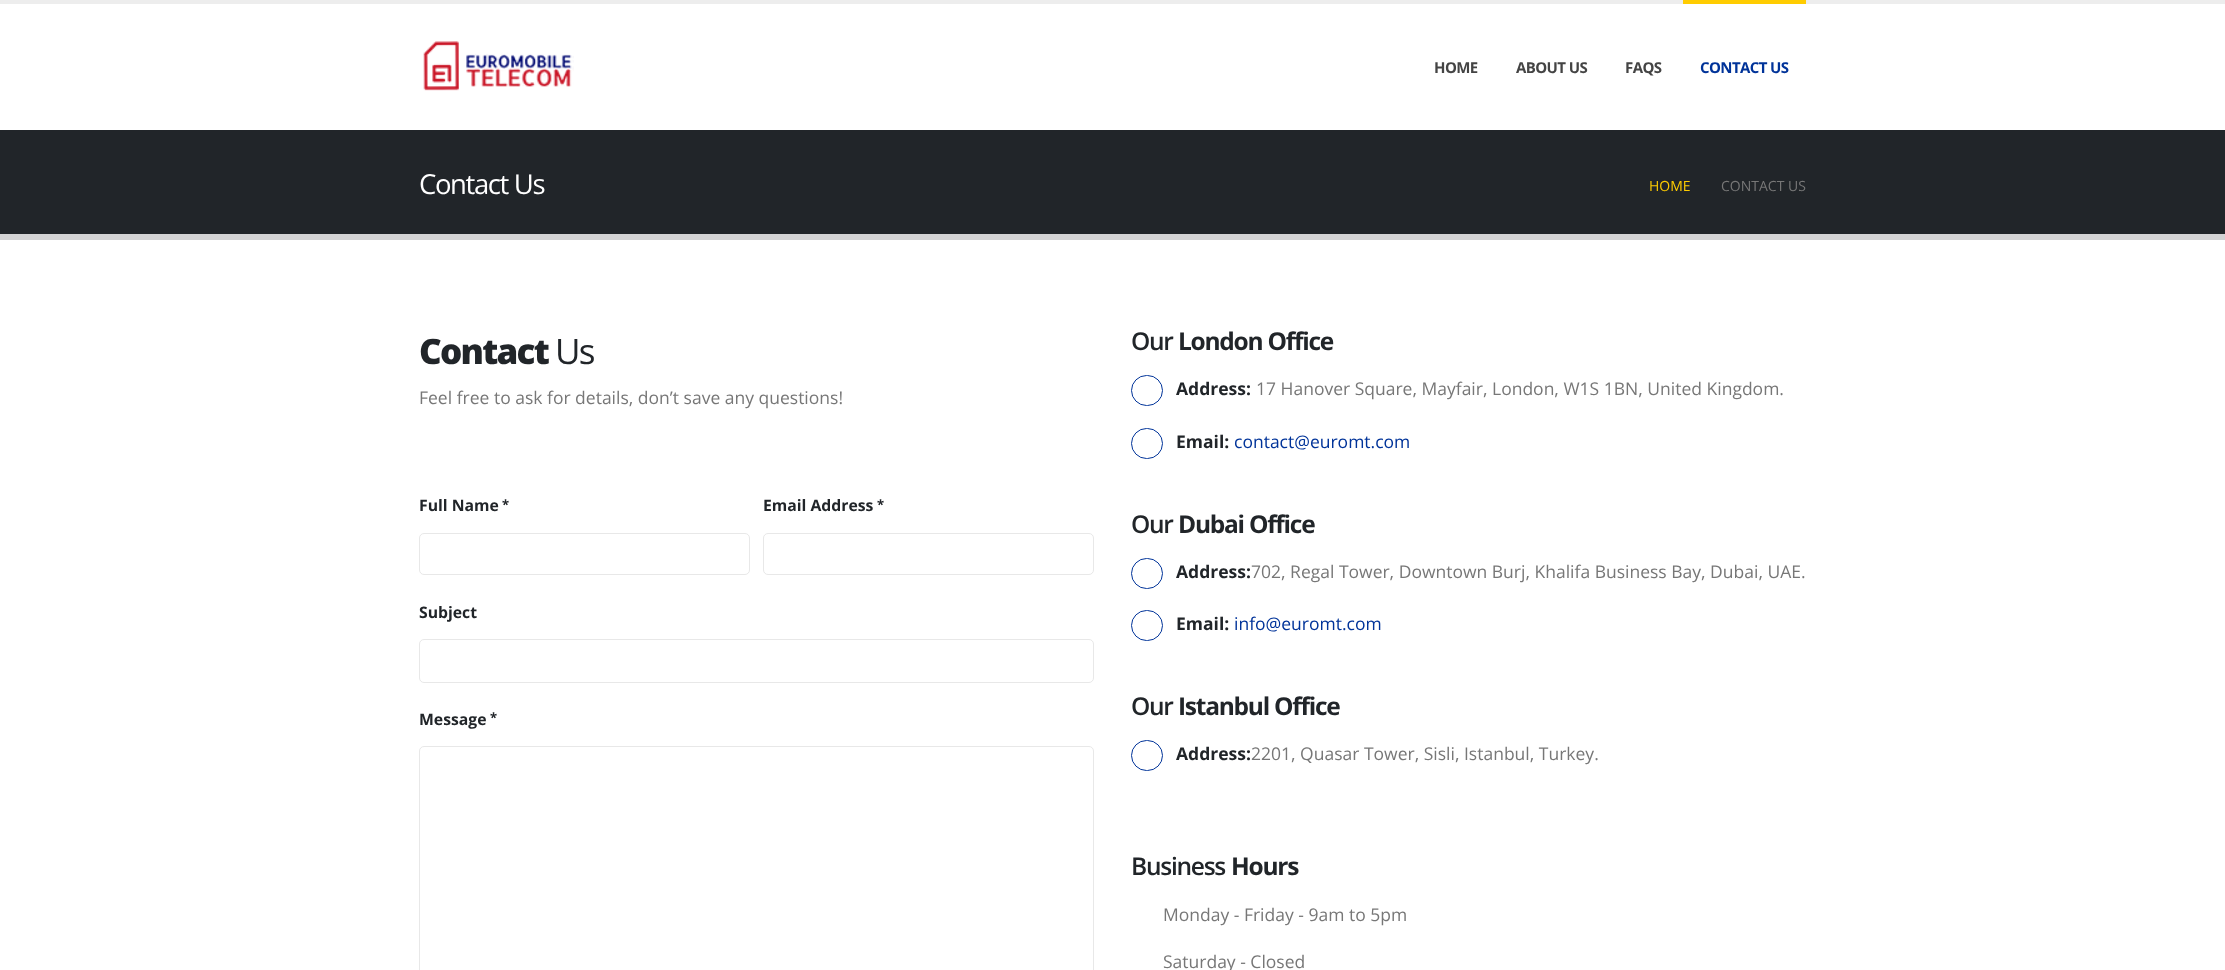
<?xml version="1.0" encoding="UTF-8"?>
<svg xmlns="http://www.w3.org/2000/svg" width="2225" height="970">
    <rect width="100%" height="100%" fill="#FFFFFF"/>
    <rect x="0" y="0" width="2225" height="4" fill="#EDEDED"/>
    <image x="423" y="41" width="151" height="50" href="img_01.png"/>
    <text x="1434" y="73" font-family="Open Sans" font-size="15" font-weight="700" letter-spacing="-0.6" fill="#444444">HOME</text>
    <text x="1516" y="73" font-family="Open Sans" font-size="15" font-weight="700" letter-spacing="-0.6" fill="#444444">ABOUT US</text>
    <text x="1625" y="73" font-family="Open Sans" font-size="15" font-weight="700" letter-spacing="-0.6" fill="#444444">FAQS</text>
    <rect x="1683" y="0" width="123" height="4" fill="#FFCC00"/>
    <text x="1700" y="73" font-family="Open Sans" font-size="15" font-weight="700" letter-spacing="-0.6" fill="#003399">CONTACT US</text>
    <rect x="0" y="130" width="2225" height="104" fill="#212529"/>
    <text x="419" y="194" font-family="Open Sans" font-size="27.5" letter-spacing="-1.4" fill="#FFFFFF">Contact Us</text>
    <text x="1649" y="191" font-family="Open Sans" font-size="14" fill="#FFCC00">HOME</text>
    <text x="1721" y="191" font-family="Open Sans" font-size="14" fill="#777777">CONTACT US</text>
    <rect x="0" y="234" width="2225" height="6" fill="#D3D3D4"/>
    <text x="419" y="364" font-family="Open Sans" font-size="35" font-weight="800" letter-spacing="-1.75" fill="#212529">Contact</text>
    <text x="555" y="364" font-family="Open Sans" font-size="35" letter-spacing="-1.75" fill="#212529">Us</text>
    <text x="419" y="404" font-family="Open Sans" font-size="17.5" fill="#777777">Feel free to ask for details, don’t save any questions!</text>
    <text x="419" y="511" font-family="Open Sans" font-size="15.75" font-weight="700" fill="#212529">Full Name</text>
    <text x="502" y="509" font-family="Open Sans" font-size="13" font-weight="700" fill="#212529">*</text>
    <rect x="419.5" y="533.5" width="330" height="41" rx="4.5" fill="none" stroke="#E8E8E8"/>
    <text x="763" y="511" font-family="Open Sans" font-size="15.75" font-weight="700" fill="#212529">Email Address</text>
    <text x="877" y="509" font-family="Open Sans" font-size="13" font-weight="700" fill="#212529">*</text>
    <rect x="763.5" y="533.5" width="330" height="41" rx="4.5" fill="none" stroke="#E8E8E8"/>
    <text x="419" y="618" font-family="Open Sans" font-size="15.75" font-weight="700" fill="#212529">Subject</text>
    <rect x="419.5" y="639.5" width="674" height="43" rx="4.5" fill="none" stroke="#E8E8E8"/>
    <text x="419" y="725" font-family="Open Sans" font-size="15.75" font-weight="700" fill="#212529">Message</text>
    <text x="490" y="722" font-family="Open Sans" font-size="13" font-weight="700" fill="#212529">*</text>
    <rect x="419.5" y="746.5" width="674" height="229" rx="4.5" fill="none" stroke="#E8E8E8"/>
    <text x="1131" y="350" font-family="Open Sans" font-size="24.5" font-weight="600" letter-spacing="-1.25" fill="#212529">Our</text>
    <text x="1178" y="350" font-family="Open Sans" font-size="24.5" font-weight="700" letter-spacing="-1.25" fill="#212529">London Office</text>
    <rect x="1131.5" y="375.5" width="31" height="30" rx="15" fill="none" stroke="#003399"/>
    <text x="1176" y="395" font-family="Open Sans" font-size="17.5" font-weight="700" fill="#212529">Address:</text>
    <text x="1256" y="395" font-family="Open Sans" font-size="17.5" fill="#777777">17 Hanover Square, Mayfair, London, W1S 1BN, United Kingdom.</text>
    <rect x="1131.5" y="428.5" width="31" height="30" rx="15" fill="none" stroke="#003399"/>
    <text x="1176" y="448" font-family="Open Sans" font-size="17.5" font-weight="700" fill="#212529">Email:</text>
    <text x="1234" y="448" font-family="Open Sans" font-size="17.5" fill="#003399">contact@euromt.com</text>
    <text x="1131" y="533" font-family="Open Sans" font-size="24.5" font-weight="600" letter-spacing="-1.25" fill="#212529">Our</text>
    <text x="1178" y="533" font-family="Open Sans" font-size="24.5" font-weight="700" letter-spacing="-1.25" fill="#212529">Dubai Office</text>
    <rect x="1131.5" y="558.5" width="31" height="30" rx="15" fill="none" stroke="#003399"/>
    <text x="1176" y="578" font-family="Open Sans" font-size="17.5" font-weight="700" fill="#212529">Address:</text>
    <text x="1251" y="578" font-family="Open Sans" font-size="17.5" fill="#777777">702, Regal Tower, Downtown Burj, Khalifa Business Bay, Dubai, UAE.</text>
    <rect x="1131.5" y="610.5" width="31" height="30" rx="15" fill="none" stroke="#003399"/>
    <text x="1176" y="630" font-family="Open Sans" font-size="17.5" font-weight="700" fill="#212529">Email:</text>
    <text x="1234" y="630" font-family="Open Sans" font-size="17.5" fill="#003399">info@euromt.com</text>
    <text x="1131" y="715" font-family="Open Sans" font-size="24.5" font-weight="600" letter-spacing="-1.25" fill="#212529">Our</text>
    <text x="1178" y="715" font-family="Open Sans" font-size="24.5" font-weight="700" letter-spacing="-1.25" fill="#212529">Istanbul Office</text>
    <rect x="1131.5" y="740.5" width="31" height="30" rx="15" fill="none" stroke="#003399"/>
    <text x="1176" y="760" font-family="Open Sans" font-size="17.5" font-weight="700" fill="#212529">Address:</text>
    <text x="1251" y="760" font-family="Open Sans" font-size="17.5" fill="#777777">2201, Quasar Tower, Sisli, Istanbul, Turkey.</text>
    <text x="1131" y="875" font-family="Open Sans" font-size="24.5" font-weight="600" letter-spacing="-1.25" fill="#212529">Business</text>
    <text x="1231" y="875" font-family="Open Sans" font-size="24.5" font-weight="700" letter-spacing="-1.25" fill="#212529">Hours</text>
    <text x="1163" y="921" font-family="Open Sans" font-size="17.5" fill="#777777">Monday - Friday - 9am to 5pm</text>
    <text x="1163" y="968" font-family="Open Sans" font-size="17.5" fill="#777777">Saturday - Closed</text>
</svg>
